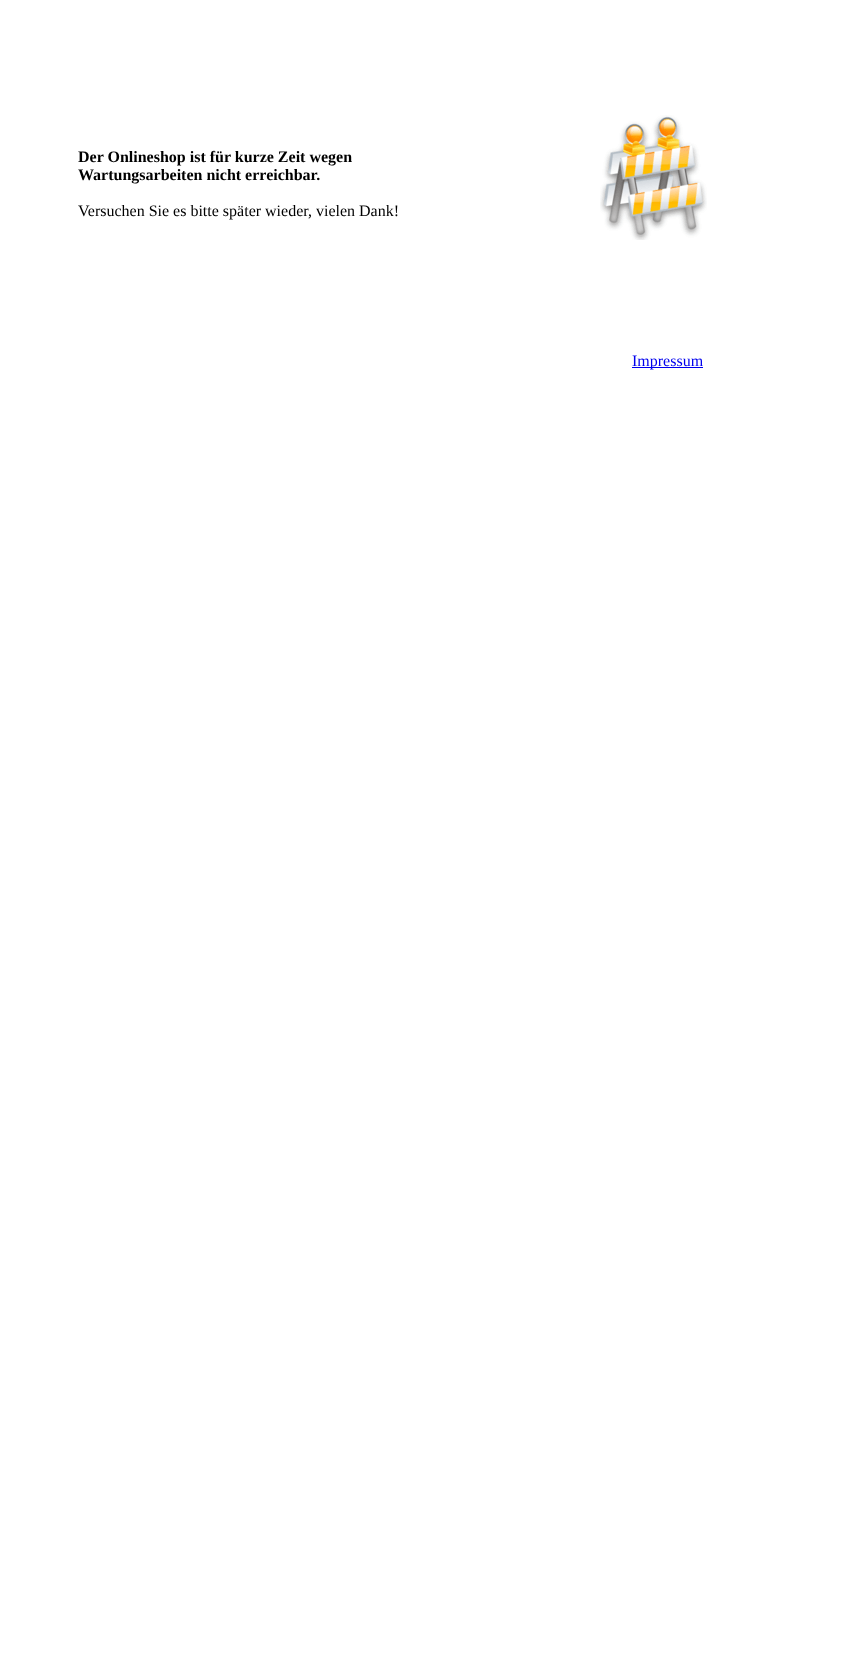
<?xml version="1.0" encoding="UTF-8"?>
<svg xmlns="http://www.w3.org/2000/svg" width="856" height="1656">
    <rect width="100%" height="100%" fill="#FFFFFF"/>
    <text font-family="Liberation Serif" font-size="16" font-weight="700" fill="#000000">
        <tspan x="78" y="162">Der Onlineshop ist für kurze Zeit wegen</tspan>
        <tspan x="78" y="180">Wartungsarbeiten nicht erreichbar.</tspan>
    </text>
    <text x="78" y="216" font-family="Liberation Serif" font-size="16" fill="#000000">Versuchen Sie es bitte später wieder, vielen Dank!</text>
    <image x="600" y="115" width="107" height="125" href="img_01.png"/>
    <rect x="632" y="367" width="71" height="1" fill="#0000EE"/>
    <text x="632" y="366" font-family="Liberation Serif" font-size="16" fill="#0000EE">Impressum</text>
</svg>
